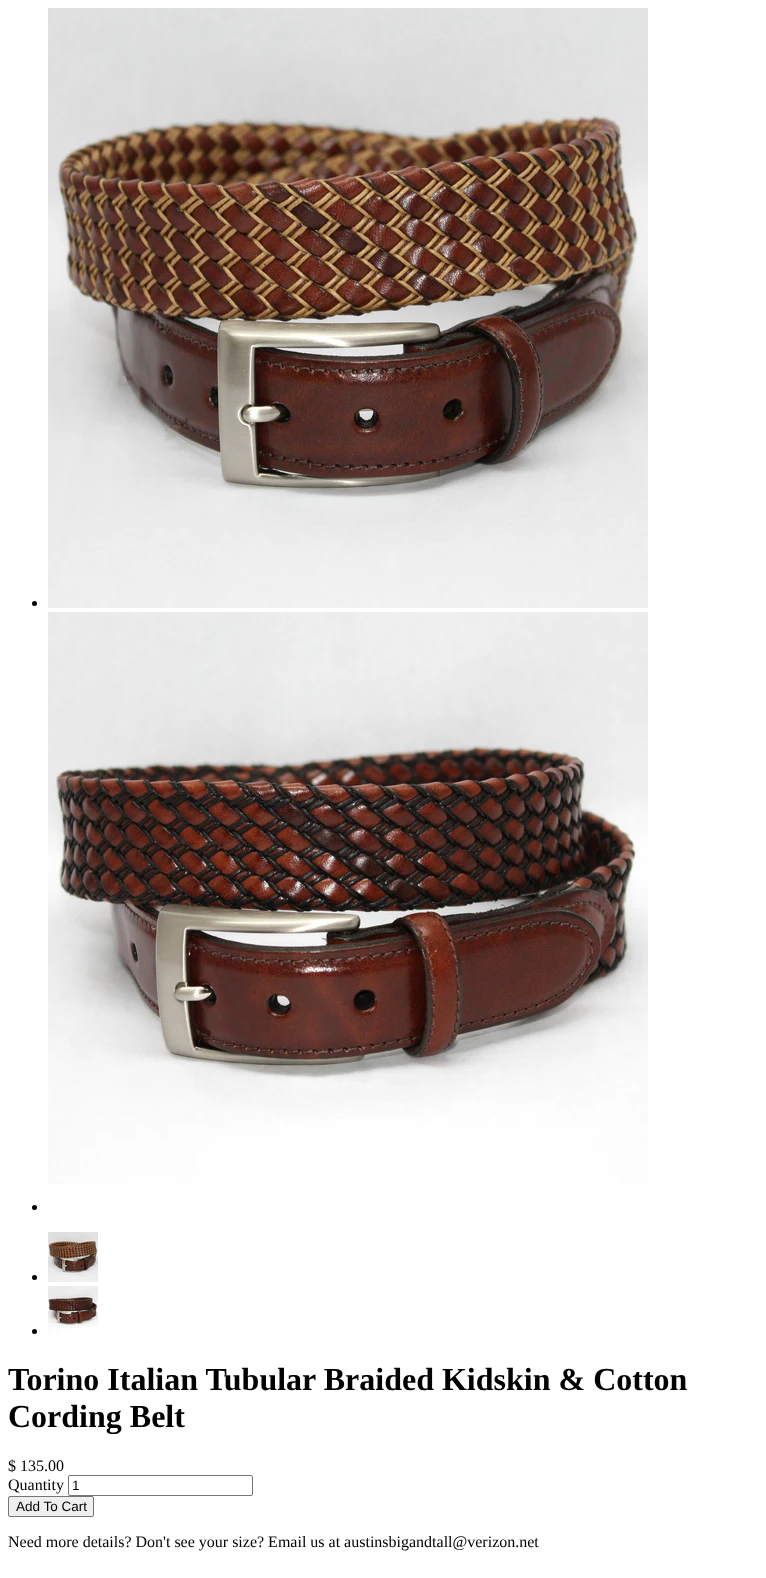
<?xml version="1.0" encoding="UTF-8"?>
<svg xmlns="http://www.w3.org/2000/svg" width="766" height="1578">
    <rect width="100%" height="100%" fill="#FFFFFF"/>
    <circle cx="34.5" cy="603.5" r="2.5" fill="#000000"/>
    <image x="48" y="8" width="600" height="600" href="img_01.png"/>
    <image x="48" y="612" width="600" height="572" href="img_02.png"/>
    <circle cx="34.5" cy="1207.5" r="2.5" fill="#000000"/>
    <circle cx="34.5" cy="1277.5" r="2.5" fill="#000000"/>
    <image x="48" y="1232" width="50" height="50" href="img_03.png"/>
    <circle cx="34.5" cy="1331.5" r="2.5" fill="#000000"/>
    <image x="48" y="1286" width="50" height="48" href="img_04.png"/>
    <text font-family="Liberation Serif" font-size="32" font-weight="700" fill="#000000">
        <tspan x="8" y="1390">Torino Italian Tubular Braided Kidskin &amp; Cotton</tspan>
        <tspan x="8" y="1427">Cording Belt</tspan>
    </text>
    <text font-family="Liberation Serif" font-size="16" fill="#000000">
        <tspan x="8" y="1471">$ 135.00</tspan>
        <tspan x="8" y="1490">Quantity</tspan>
    </text>
    <rect x="68.5" y="1475.5" width="184" height="20" rx="1.5" fill="none" stroke="#767676"/>
    <text x="72" y="1490" font-family="Liberation Sans" font-size="13.5" fill="#000000">1</text>
    <rect x="8.5" y="1496.5" width="85" height="20" rx="1.5" fill="#EFEFEF" stroke="#767676"/>
    <text x="16" y="1511" font-family="Liberation Sans" font-size="13.5" fill="#000000">Add To Cart</text>
    <text x="8" y="1547" font-family="Liberation Serif" font-size="16" fill="#000000">Need more details? Don't see your size? Email us at austinsbigandtall@verizon.net</text>
</svg>
